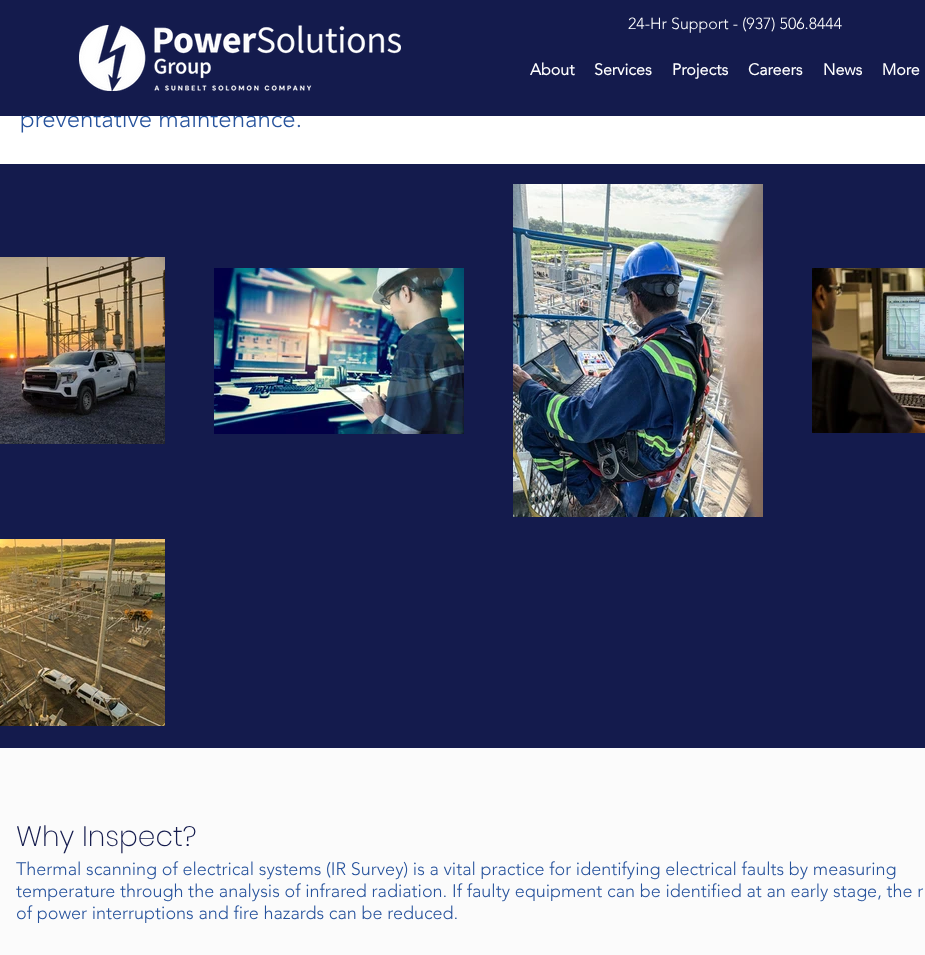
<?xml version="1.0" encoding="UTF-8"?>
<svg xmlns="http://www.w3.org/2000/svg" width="925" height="955">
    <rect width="100%" height="100%" fill="#FFFFFF"/>
    <text x="20" y="127" font-family="'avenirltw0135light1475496'" font-size="24" font-weight="300" fill="#26529C">preventative maintenance.</text>
    <rect x="0" y="0" width="925" height="116" fill="#141B4D"/>
    <image x="79" y="25" width="322" height="66" href="img_01.png"/>
    <text x="628" y="29" font-family="'avenirltw0135light1475496'" font-size="16" font-weight="300" fill="#FFFFFF">24-Hr Support - (937) 506.8444</text>
    <text x="530" y="75" font-family="'avenirltw0135light1475496'" font-size="16" font-weight="700" fill="#FFFFFF">About</text>
    <text x="594" y="75" font-family="'avenirltw0135light1475496'" font-size="16" font-weight="700" fill="#FFFFFF">Services</text>
    <text x="672" y="75" font-family="'avenirltw0135light1475496'" font-size="16" font-weight="700" fill="#FFFFFF">Projects</text>
    <text x="748" y="75" font-family="'avenirltw0135light1475496'" font-size="16" font-weight="700" fill="#FFFFFF">Careers</text>
    <text x="823" y="75" font-family="'avenirltw0135light1475496'" font-size="16" font-weight="700" fill="#FFFFFF">News</text>
    <text x="882" y="75" font-family="'avenirltw0135light1475496'" font-size="16" font-weight="700" fill="#FFFFFF">More</text>
    <rect x="0" y="164" width="925" height="584" fill="#141B4D"/>
    <image x="0" y="257" width="165" height="187" href="img_02.png"/>
    <image x="214" y="268" width="250" height="166" href="img_03.png"/>
    <image x="513" y="184" width="250" height="333" href="img_04.png"/>
    <image x="812" y="268" width="113" height="165" href="img_05.png"/>
    <image x="0" y="539" width="165" height="187" href="img_06.png"/>
    <rect x="0" y="748" width="925" height="207" fill="#FBFBFB"/>
    <text x="16" y="846" font-family="Poppins" font-size="28" font-weight="200" fill="#141B4D">Why Inspect?</text>
    <text font-family="'avenirltw0135light1475496'" font-size="18" font-weight="300" fill="#26529C">
        <tspan x="16" y="875">Thermal scanning of electrical systems (IR Survey) is a vital practice for identifying electrical faults by measuring</tspan>
        <tspan x="16" y="897">temperature through the analysis of infrared radiation. If faulty equipment can be identified at an early stage, the r</tspan>
        <tspan x="16" y="919">of power interruptions and fire hazards can be reduced.</tspan>
    </text>
</svg>
